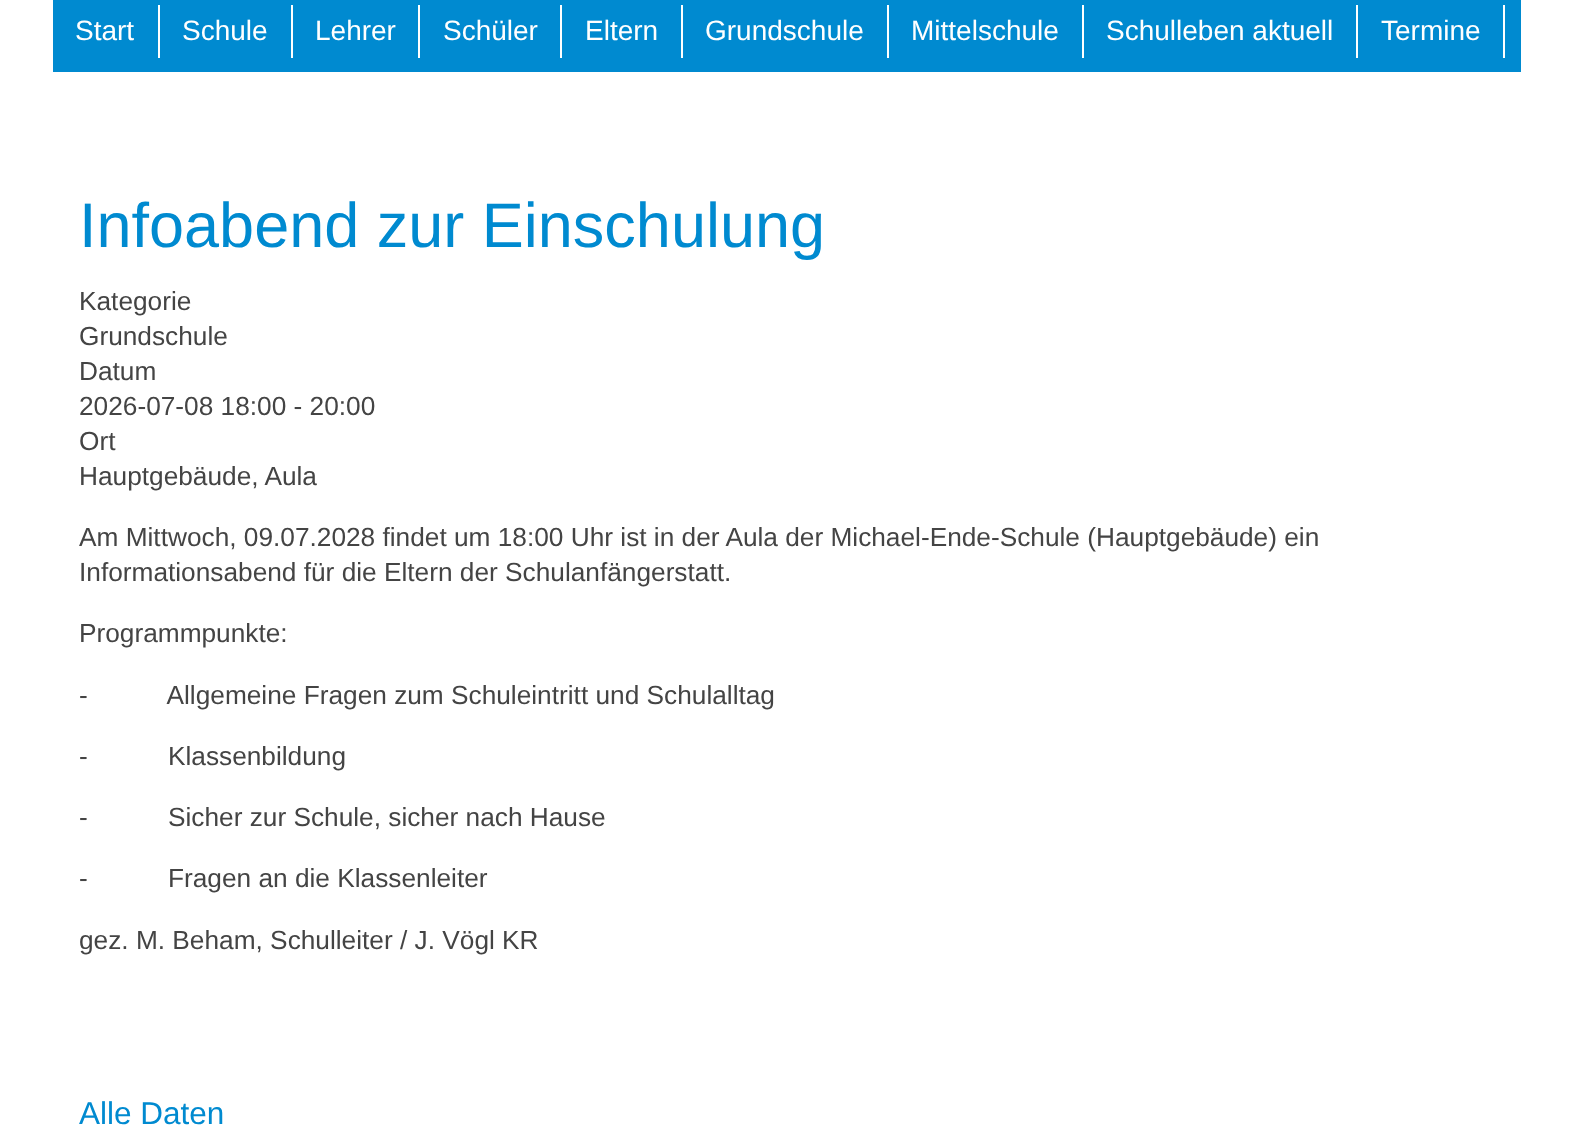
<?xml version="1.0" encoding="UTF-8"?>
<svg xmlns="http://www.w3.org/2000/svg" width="1573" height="1129">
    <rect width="100%" height="100%" fill="#FFFFFF"/>
    <rect x="53" y="0" width="1468" height="72" fill="#008AD0"/>
    <rect x="158" y="5" width="2" height="53" fill="#FFFFFF"/>
    <text x="75" y="40" font-family="Liberation Sans" font-size="28" fill="#FFFFFF">Start</text>
    <rect x="291" y="5" width="2" height="53" fill="#FFFFFF"/>
    <text x="182" y="40" font-family="Liberation Sans" font-size="28" fill="#FFFFFF">Schule</text>
    <rect x="418" y="5" width="2" height="53" fill="#FFFFFF"/>
    <text x="315" y="40" font-family="Liberation Sans" font-size="28" fill="#FFFFFF">Lehrer</text>
    <rect x="560" y="5" width="2" height="53" fill="#FFFFFF"/>
    <text x="443" y="40" font-family="Liberation Sans" font-size="28" fill="#FFFFFF">Schüler</text>
    <rect x="681" y="5" width="2" height="53" fill="#FFFFFF"/>
    <text x="585" y="40" font-family="Liberation Sans" font-size="28" fill="#FFFFFF">Eltern</text>
    <rect x="887" y="5" width="2" height="53" fill="#FFFFFF"/>
    <text x="705" y="40" font-family="Liberation Sans" font-size="28" fill="#FFFFFF">Grundschule</text>
    <rect x="1082" y="5" width="2" height="53" fill="#FFFFFF"/>
    <text x="911" y="40" font-family="Liberation Sans" font-size="28" fill="#FFFFFF">Mittelschule</text>
    <rect x="1356" y="5" width="2" height="53" fill="#FFFFFF"/>
    <text x="1106" y="40" font-family="Liberation Sans" font-size="28" fill="#FFFFFF">Schulleben aktuell</text>
    <rect x="1503" y="5" width="2" height="53" fill="#FFFFFF"/>
    <text x="1381" y="40" font-family="Liberation Sans" font-size="28" fill="#FFFFFF">Termine</text>
    <text x="79" y="247" font-family="Liberation Sans" font-size="63" fill="#008AD0">Infoabend zur Einschulung</text>
    <text font-family="Liberation Sans" font-size="26.25" fill="#444444">
        <tspan x="79" y="310">Kategorie</tspan>
        <tspan x="79" y="345">Grundschule</tspan>
        <tspan x="79" y="380">Datum</tspan>
        <tspan x="79" y="415">2026-07-08 18:00 - 20:00</tspan>
        <tspan x="79" y="450">Ort</tspan>
        <tspan x="79" y="485">Hauptgebäude, Aula</tspan>
    </text>
    <text font-family="Liberation Sans" font-size="26.25" fill="#444444">
        <tspan x="79" y="546">Am Mittwoch, 09.07.2028 findet um 18:00 Uhr ist in der Aula der Michael-Ende-Schule (Hauptgebäude) ein</tspan>
        <tspan x="79" y="581">Informationsabend für die Eltern der Schulanfängerstatt.</tspan>
    </text>
    <text x="79" y="642" font-family="Liberation Sans" font-size="26.25" fill="#444444">Programmpunkte:</text>
    <text x="79" y="704" font-family="Liberation Sans" font-size="26.25" fill="#444444" xml:space="preserve">-           Allgemeine Fragen zum Schuleintritt und Schulalltag</text>
    <text x="79" y="765" font-family="Liberation Sans" font-size="26.25" fill="#444444" xml:space="preserve">-           Klassenbildung</text>
    <text x="79" y="826" font-family="Liberation Sans" font-size="26.25" fill="#444444" xml:space="preserve">-           Sicher zur Schule, sicher nach Hause</text>
    <text x="79" y="887" font-family="Liberation Sans" font-size="26.25" fill="#444444" xml:space="preserve">-           Fragen an die Klassenleiter</text>
    <text x="79" y="949" font-family="Liberation Sans" font-size="26.25" fill="#444444">gez. M. Beham, Schulleiter / J. Vögl KR</text>
    <text x="79" y="1124" font-family="Liberation Sans" font-size="31.5" fill="#008AD0">Alle Daten</text>
</svg>
